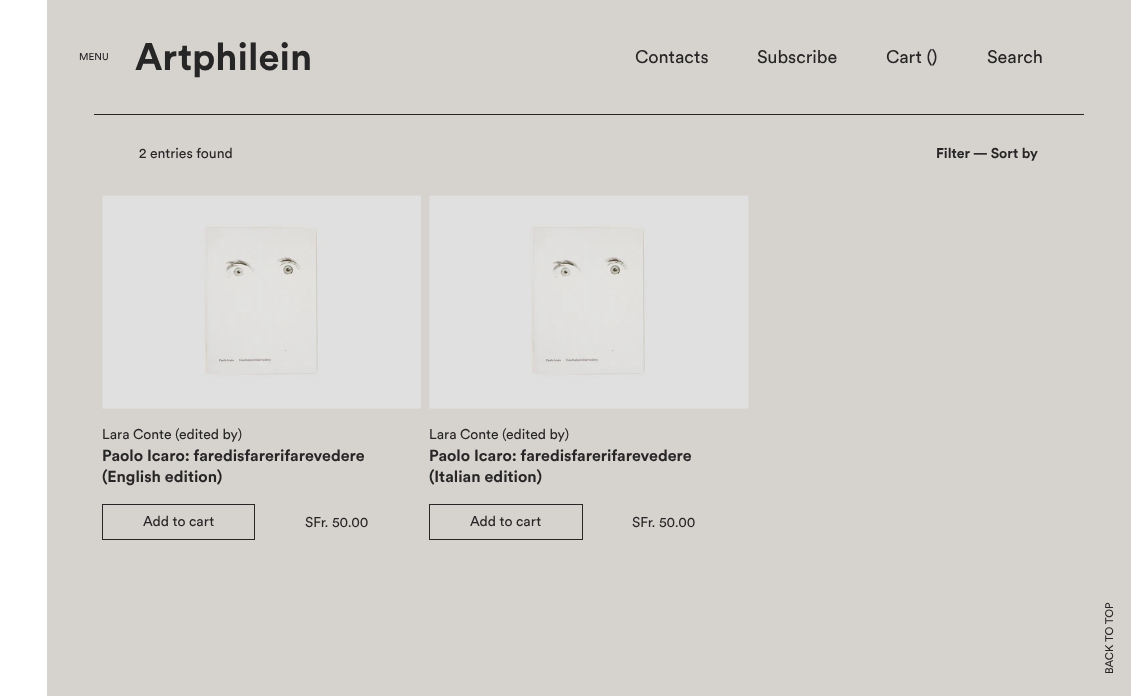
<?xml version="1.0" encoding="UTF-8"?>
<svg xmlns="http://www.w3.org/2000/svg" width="1131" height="696">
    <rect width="100%" height="100%" fill="#D6D2CE"/>
    <rect x="0" y="0" width="47" height="696" fill="#FFFFFF"/>
    <text x="79" y="60" font-family="Circular" font-size="10" fill="#262626">MENU</text>
    <text x="135" y="70" font-family="Circular" font-size="38" font-weight="700" fill="#262626">Artphilein</text>
    <text x="635" y="63" font-family="Circular" font-size="18" fill="#262626">Contacts</text>
    <text x="757" y="63" font-family="Circular" font-size="18" fill="#262626">Subscribe</text>
    <text x="886" y="63" font-family="Circular" font-size="18" fill="#262626">Cart ()</text>
    <text x="987" y="63" font-family="Circular" font-size="18" fill="#262626">Search</text>
    <rect x="94" y="114" width="990" height="1" fill="#262626"/>
    <text x="139" y="158" font-family="Circular" font-size="14" fill="#262626">2 entries found</text>
    <text x="936" y="158" font-family="Circular" font-size="14" font-weight="700" fill="#262626">Filter — Sort by</text>
    <image x="102" y="195" width="319" height="214" href="img_01.png"/>
    <text x="102" y="439" font-family="Circular" font-size="14" fill="#262626">Lara Conte (edited by)</text>
    <text font-family="Circular" font-size="16" font-weight="700" fill="#262626">
        <tspan x="102" y="461">Paolo Icaro: faredisfarerifarevedere</tspan>
        <tspan x="102" y="482">(English edition)</tspan>
    </text>
    <rect x="102.5" y="504.5" width="152" height="35" fill="none" stroke="#262626"/>
    <text x="143" y="526" font-family="Circular" font-size="14" fill="#262626">Add to cart</text>
    <text x="305" y="527" font-family="Circular" font-size="14" fill="#262626">SFr. 50.00</text>
    <image x="429" y="195" width="320" height="214" href="img_02.png"/>
    <text x="429" y="439" font-family="Circular" font-size="14" fill="#262626">Lara Conte (edited by)</text>
    <text font-family="Circular" font-size="16" font-weight="700" fill="#262626">
        <tspan x="429" y="461">Paolo Icaro: faredisfarerifarevedere</tspan>
        <tspan x="429" y="482">(Italian edition)</tspan>
    </text>
    <rect x="429.5" y="504.5" width="153" height="35" fill="none" stroke="#262626"/>
    <text x="470" y="526" font-family="Circular" font-size="14" fill="#262626">Add to cart</text>
    <text x="632" y="527" font-family="Circular" font-size="14" fill="#262626">SFr. 50.00</text>
    <text x="1113" y="674" transform="rotate(-90 1113 674)" font-family="Circular" font-size="11" fill="#262626">BACK TO TOP</text>
</svg>
